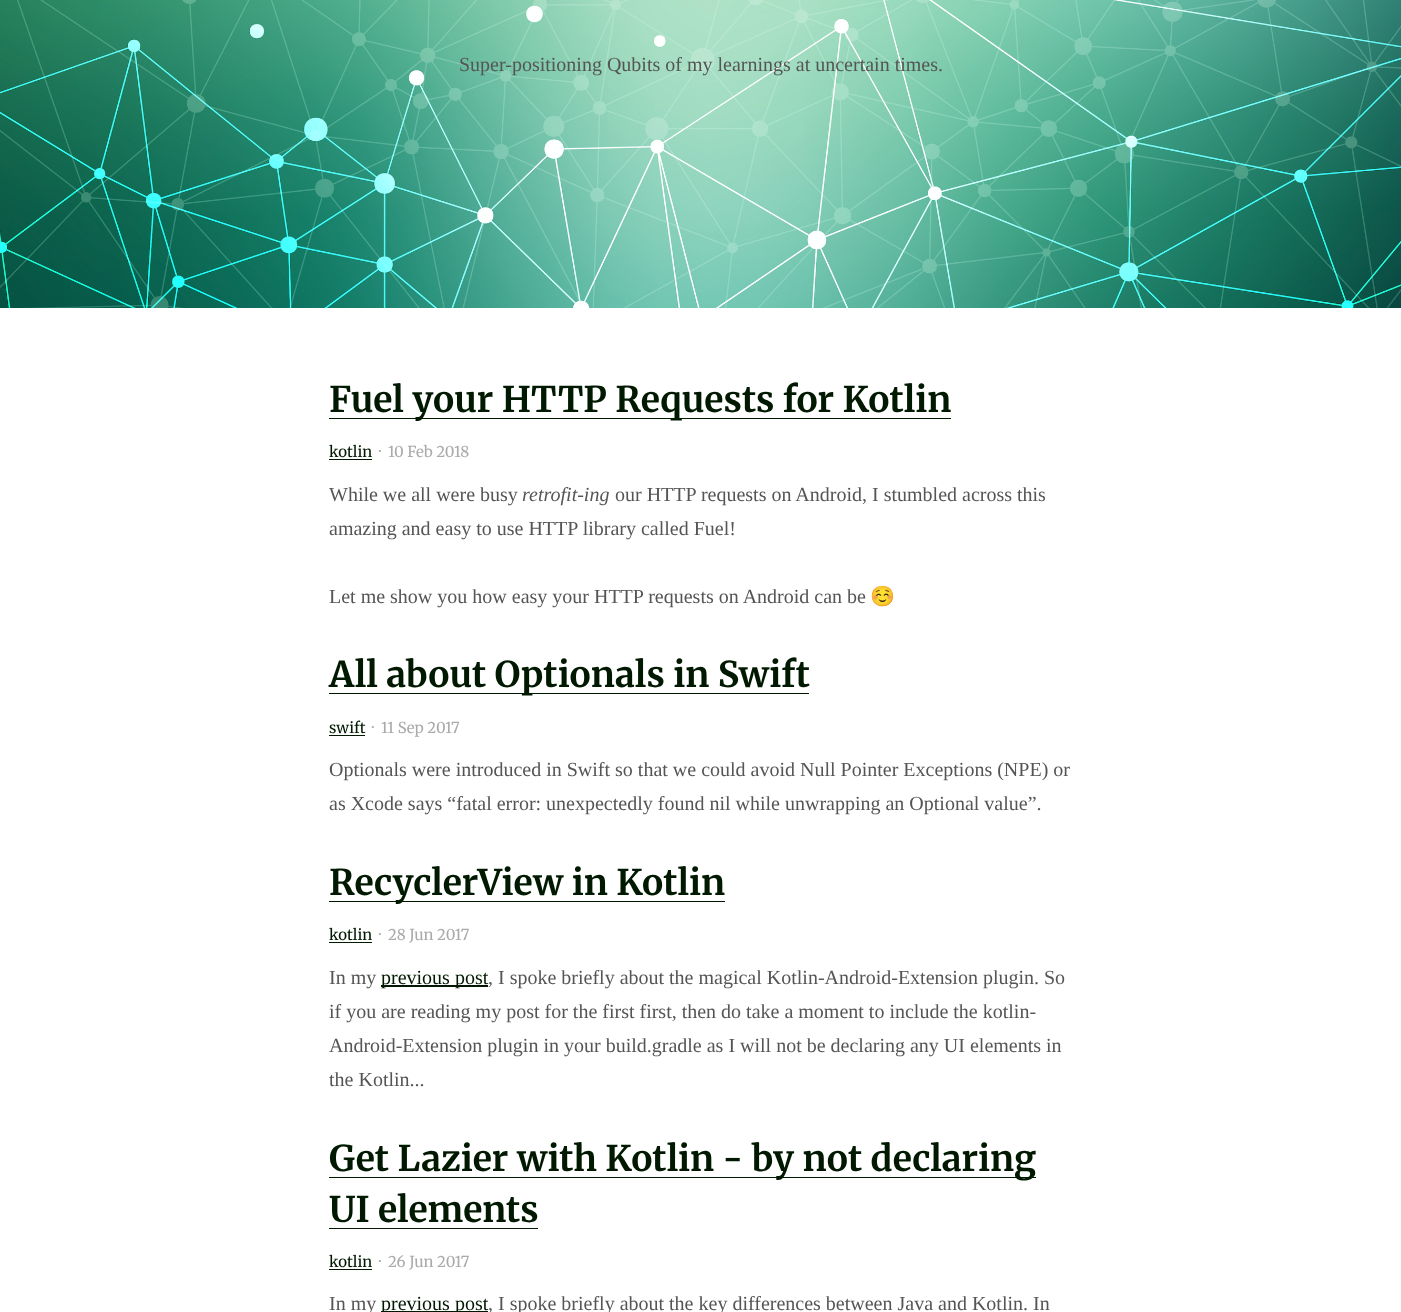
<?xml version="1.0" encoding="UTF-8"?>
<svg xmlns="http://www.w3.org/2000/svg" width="1401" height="1312">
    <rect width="100%" height="100%" fill="#FFFFFF"/>
    <image x="0" y="0" width="1401" height="308" href="img_01.png"/>
    <text x="459" y="71" font-family="Liberation Serif" font-size="20" fill="#555555">Super-positioning Qubits of my learnings at uncertain times.</text>
    <rect x="329" y="418" width="622" height="1" fill="#001900"/>
    <text x="329" y="412" font-family="Merriweather" font-size="35.5" font-weight="700" fill="#001900">Fuel your HTTP Requests for Kotlin</text>
    <text x="329" y="457" font-family="Merriweather" font-size="15" fill="#001900">kotlin</text>
    <rect x="329" y="459" width="43" height="1" fill="#001900"/>
    <text x="379" y="457" font-family="Merriweather" font-size="15" fill="#AAAAAA">·</text>
    <text x="388" y="457" font-family="Merriweather" font-size="15" fill="#AAAAAA">10 Feb 2018</text>
    <text x="329" y="501" font-family="Liberation Serif" font-size="20" fill="#555555">While we all were busy</text>
    <text x="522" y="501" font-family="Liberation Serif" font-size="20" font-style="italic" fill="#555555">retrofit-ing</text>
    <text x="615" y="501" font-family="Liberation Serif" font-size="20" fill="#555555">our HTTP requests on Android, I stumbled across this</text>
    <text x="329" y="535" font-family="Liberation Serif" font-size="20" fill="#555555">amazing and easy to use HTTP library called Fuel!</text>
    <text x="329" y="603" font-family="Liberation Serif" font-size="20" fill="#555555">Let me show you how easy your HTTP requests on Android can be</text>
    <text x="870" y="603" font-family="Noto Color Emoji" font-size="20" fill="#555555">☺️</text>
    <rect x="329" y="693" width="480" height="1" fill="#001900"/>
    <text x="329" y="687" font-family="Merriweather" font-size="35.5" font-weight="700" fill="#001900">All about Optionals in Swift</text>
    <text x="329" y="733" font-family="Merriweather" font-size="15" fill="#001900">swift</text>
    <rect x="329" y="735" width="36" height="1" fill="#001900"/>
    <text x="372" y="733" font-family="Merriweather" font-size="15" fill="#AAAAAA">·</text>
    <text x="381" y="733" font-family="Merriweather" font-size="15" fill="#AAAAAA">11 Sep 2017</text>
    <text font-family="Liberation Serif" font-size="20" fill="#555555">
        <tspan x="329" y="776">Optionals were introduced in Swift so that we could avoid Null Pointer Exceptions (NPE) or</tspan>
        <tspan x="329" y="810">as Xcode says “fatal error: unexpectedly found nil while unwrapping an Optional value”.</tspan>
    </text>
    <rect x="329" y="901" width="396" height="1" fill="#001900"/>
    <text x="329" y="895" font-family="Merriweather" font-size="35.5" font-weight="700" fill="#001900">RecyclerView in Kotlin</text>
    <text x="329" y="940" font-family="Merriweather" font-size="15" fill="#001900">kotlin</text>
    <rect x="329" y="942" width="43" height="1" fill="#001900"/>
    <text x="379" y="940" font-family="Merriweather" font-size="15" fill="#AAAAAA">·</text>
    <text x="388" y="940" font-family="Merriweather" font-size="15" fill="#AAAAAA">28 Jun 2017</text>
    <text x="329" y="984" font-family="Liberation Serif" font-size="20" fill="#555555">In my</text>
    <rect x="381" y="985" width="107" height="2" fill="#001900"/>
    <text x="381" y="984" font-family="Liberation Serif" font-size="20" fill="#001900">previous post</text>
    <text x="488" y="984" font-family="Liberation Serif" font-size="20" fill="#555555">, I spoke briefly about the magical Kotlin-Android-Extension plugin. So</text>
    <text font-family="Liberation Serif" font-size="20" fill="#555555">
        <tspan x="329" y="1018">if you are reading my post for the first first, then do take a moment to include the kotlin-</tspan>
        <tspan x="329" y="1052">Android-Extension plugin in your build.gradle as I will not be declaring any UI elements in</tspan>
        <tspan x="329" y="1086">the Kotlin...</tspan>
    </text>
    <rect x="329" y="1177" width="707" height="1" fill="#001900"/>
    <text font-family="Merriweather" font-size="35.5" font-weight="700" fill="#001900">
        <tspan x="329" y="1171">Get Lazier with Kotlin - by not declaring</tspan>
        <tspan x="329" y="1222">UI elements</tspan>
    </text>
    <rect x="329" y="1228" width="209" height="1" fill="#001900"/>
    <text x="329" y="1267" font-family="Merriweather" font-size="15" fill="#001900">kotlin</text>
    <rect x="329" y="1269" width="43" height="1" fill="#001900"/>
    <text x="379" y="1267" font-family="Merriweather" font-size="15" fill="#AAAAAA">·</text>
    <text x="388" y="1267" font-family="Merriweather" font-size="15" fill="#AAAAAA">26 Jun 2017</text>
    <text x="329" y="1310" font-family="Liberation Serif" font-size="20" fill="#555555">In my</text>
    <rect x="381" y="1311" width="107" height="1" fill="#001900"/>
    <text x="381" y="1310" font-family="Liberation Serif" font-size="20" fill="#001900">previous post</text>
    <text x="488" y="1310" font-family="Liberation Serif" font-size="20" fill="#555555">, I spoke briefly about the key differences between Java and Kotlin. In</text>
</svg>
